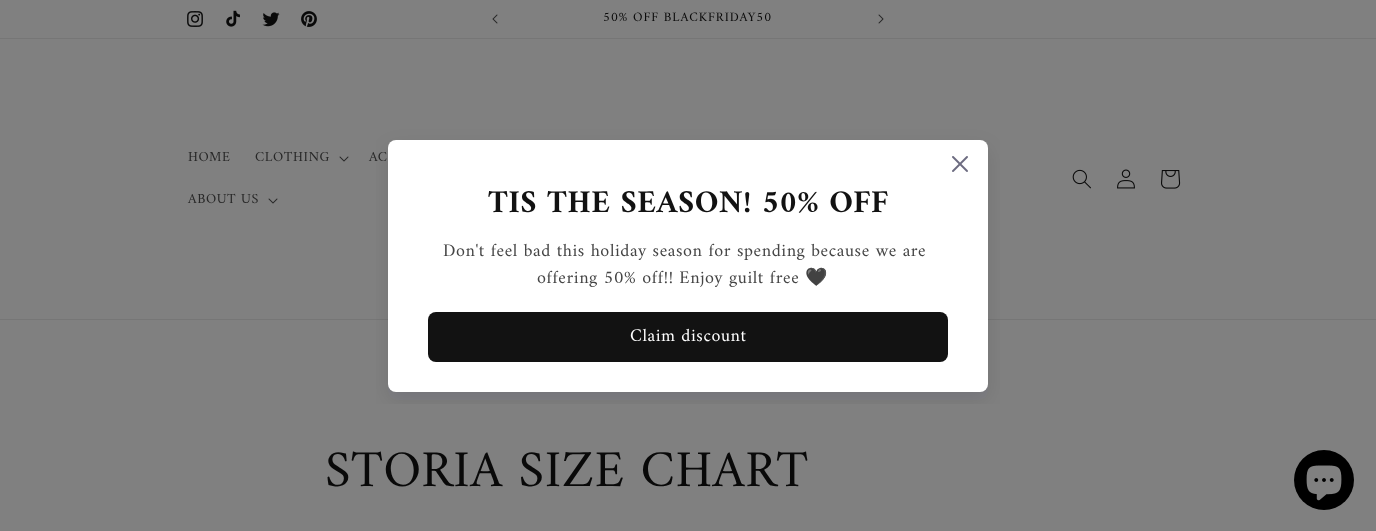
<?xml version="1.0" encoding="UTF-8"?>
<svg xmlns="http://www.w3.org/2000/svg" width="1376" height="531">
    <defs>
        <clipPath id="clip1"><rect x="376" y="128" width="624" height="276"/></clipPath>
        <filter id="blur1" x="-50%" y="-200%" width="200%" height="500%"><feGaussianBlur stdDeviation="10"/></filter>
    </defs>
    <rect width="100%" height="100%" fill="#808080"/>
    <rect x="0" y="38" width="1376" height="1" fill="#767676"/>
    <image x="187" y="11" width="16" height="16" href="img_01.png"/>
    <image x="226" y="10" width="14" height="17" href="img_02.png"/>
    <image x="262" y="12" width="18" height="15" href="img_03.png"/>
    <image x="301" y="11" width="16" height="16" href="img_04.png"/>
    <image x="492" y="14" width="6" height="10" href="img_05.png"/>
    <text x="603" y="21" font-family="Amiri" font-size="13" letter-spacing="1" fill="#090909">50% OFF BLACKFRIDAY50</text>
    <image x="878" y="14" width="6" height="10" href="img_06.png"/>
    <rect x="0" y="319" width="1376" height="1" fill="#767676"/>
    <text x="188" y="161" font-family="Amiri" font-size="14" letter-spacing="0.6" fill="#272727">HOME</text>
    <text x="255" y="161" font-family="Amiri" font-size="14" letter-spacing="0.6" fill="#272727">CLOTHING</text>
    <image x="339" y="156" width="10" height="6" href="img_07.png"/>
    <text x="369" y="161" font-family="Amiri" font-size="14" letter-spacing="0.6" fill="#272727">AC</text>
    <text x="188" y="203" font-family="Amiri" font-size="14" letter-spacing="0.6" fill="#272727">ABOUT US</text>
    <image x="268" y="198" width="10" height="6" href="img_07.png"/>
    <image x="1072" y="169" width="19" height="20" href="img_08.png"/>
    <image x="1117" y="169" width="18" height="20" href="img_09.png"/>
    <image x="1161" y="170" width="20" height="19" href="img_10.png"/>
    <g clip-path="url(#clip1)">
        <rect x="388" y="148" width="600" height="252" rx="8" fill="#121127" fill-opacity="0.1" filter="url(#blur1)"/>
    </g>
    <rect x="388" y="140" width="600" height="252" rx="8" fill="#FFFFFF"/>
    <image x="952" y="156" width="16" height="16" href="img_11.png"/>
    <text x="488" y="212" font-family="Amiri" font-size="32" font-weight="700" letter-spacing="0.6" fill="#121212">TIS THE SEASON! 50% OFF</text>
    <text x="443" y="256" font-family="Amiri" font-size="18" letter-spacing="0.6" fill="#454545">Don't feel bad this holiday season for spending because we are</text>
    <text x="537" y="283" font-family="Amiri" font-size="18" letter-spacing="0.6" fill="#454545">offering 50% off!! Enjoy guilt free</text>
    <text x="805" y="283" font-family="Noto Color Emoji" font-size="18" letter-spacing="0.6" fill="#454545">🖤</text>
    <rect x="428" y="312" width="520" height="50" rx="8" fill="#121212"/>
    <text x="630" y="341" font-family="Amiri" font-size="18" letter-spacing="0.6" fill="#FFFFFF">Claim discount</text>
    <text x="325" y="486" font-family="Amiri" font-size="52" letter-spacing="0.6" fill="#090909">STORIA SIZE CHART</text>
    <circle cx="1324" cy="480" r="30" fill="#000000"/>
    <image x="1306" y="465" width="36" height="36" href="img_12.png"/>
</svg>
